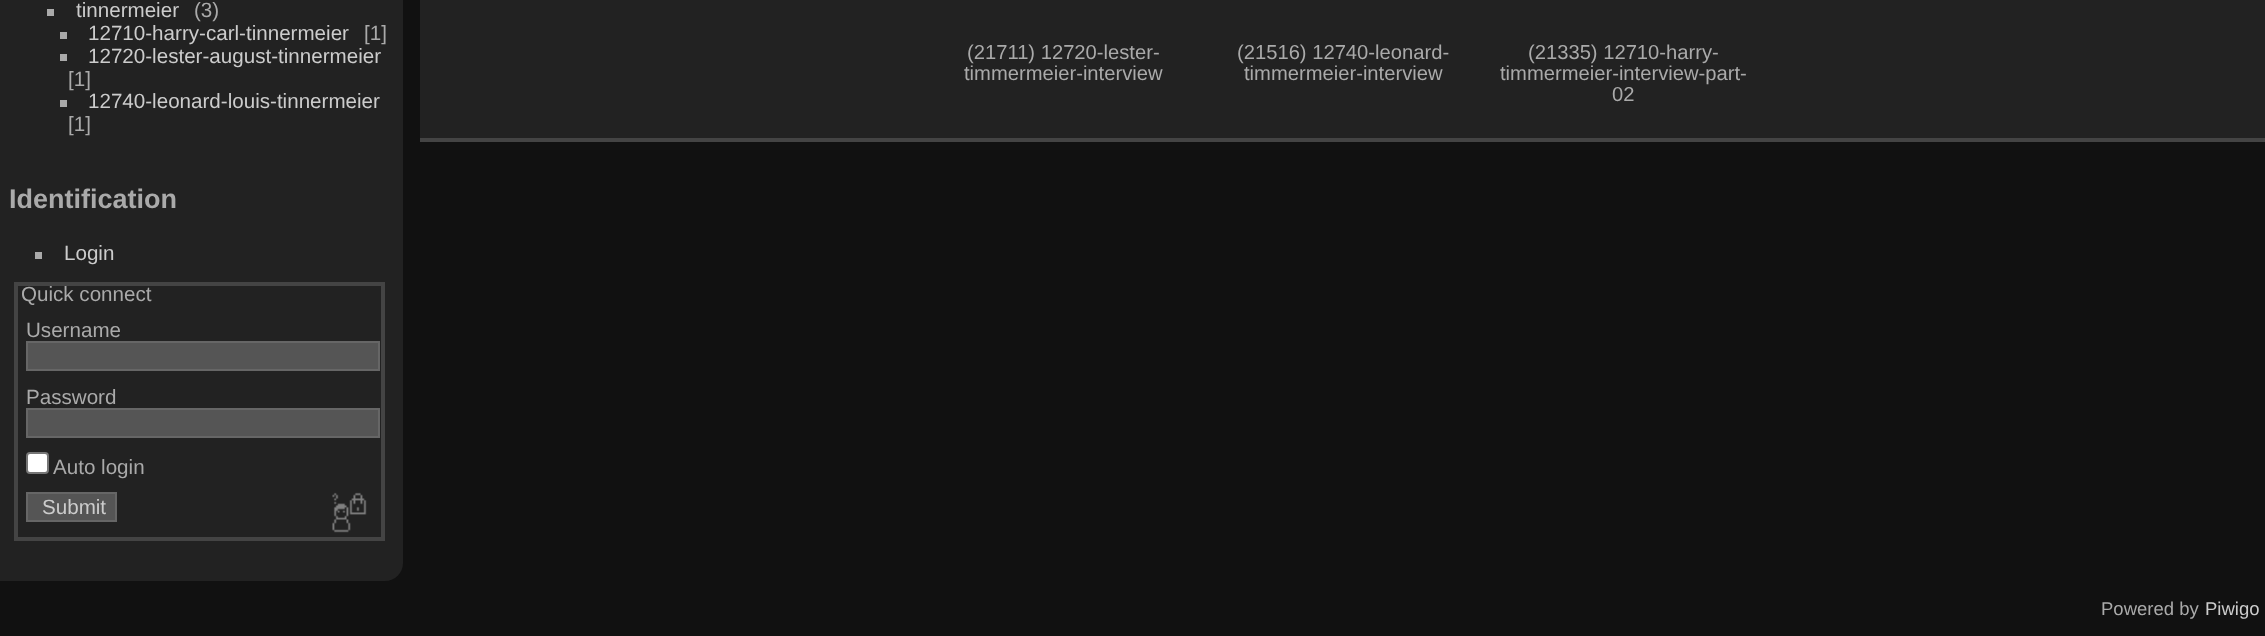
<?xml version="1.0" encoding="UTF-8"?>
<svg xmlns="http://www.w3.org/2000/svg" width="2265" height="636">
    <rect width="100%" height="100%" fill="#111111"/>
    <path d="M 0 -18 H 385 C 395 -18 403 -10 403 0 V 563 C 403 573 395 581 385 581 H 0 Z" fill="#222222"/>
    <rect x="47" y="9" width="7" height="7" fill="#AAAAAA"/>
    <text x="76" y="17" font-family="Liberation Sans" font-size="20.6" fill="#CCCCCC">tinnermeier</text>
    <text x="194" y="17" font-family="Liberation Sans" font-size="20.6" fill="#AAAAAA">(3)</text>
    <rect x="60" y="32" width="7" height="7" fill="#AAAAAA"/>
    <text x="88" y="40" font-family="Liberation Sans" font-size="20.6" fill="#CCCCCC">12710-harry-carl-tinnermeier</text>
    <text x="364" y="40" font-family="Liberation Sans" font-size="20.6" fill="#AAAAAA">[1]</text>
    <rect x="60" y="54" width="7" height="7" fill="#AAAAAA"/>
    <text x="88" y="63" font-family="Liberation Sans" font-size="20.6" fill="#CCCCCC">12720-lester-august-tinnermeier</text>
    <text x="68" y="86" font-family="Liberation Sans" font-size="20.6" fill="#AAAAAA">[1]</text>
    <rect x="60" y="100" width="7" height="7" fill="#AAAAAA"/>
    <text x="88" y="108" font-family="Liberation Sans" font-size="20.6" fill="#CCCCCC">12740-leonard-louis-tinnermeier</text>
    <text x="68" y="131" font-family="Liberation Sans" font-size="20.6" fill="#AAAAAA">[1]</text>
    <text x="9" y="208" font-family="Liberation Sans" font-size="27" font-weight="700" fill="#AAAAAA">Identification</text>
    <rect x="35" y="252" width="7" height="7" fill="#AAAAAA"/>
    <text x="64" y="260" font-family="Liberation Sans" font-size="20.6" fill="#CCCCCC">Login</text>
    <rect x="16" y="284" width="367" height="255" fill="none" stroke="#444444" stroke-width="4"/>
    <text x="21" y="301" font-family="Liberation Sans" font-size="20.6" fill="#AAAAAA">Quick connect</text>
    <text x="26" y="337" font-family="Liberation Sans" font-size="20.6" fill="#AAAAAA">Username</text>
    <rect x="27" y="342" width="352" height="28" fill="#555555" stroke="#666666" stroke-width="2"/>
    <text x="26" y="404" font-family="Liberation Sans" font-size="20.6" fill="#AAAAAA">Password</text>
    <rect x="27" y="409" width="352" height="28" fill="#555555" stroke="#666666" stroke-width="2"/>
    <rect x="27" y="453" width="21" height="20" rx="3" fill="#FFFFFF" stroke="#767676" stroke-width="2"/>
    <text x="53" y="474" font-family="Liberation Sans" font-size="20.6" fill="#AAAAAA">Auto login</text>
    <rect x="27" y="493" width="89" height="28" fill="#555555" stroke="#666666" stroke-width="2"/>
    <text x="42" y="514" font-family="Liberation Sans" font-size="20.6" fill="#CCCCCC">Submit</text>
    <image x="332" y="492" width="35" height="41" href="img_01.png"/>
    <rect x="420" y="0" width="1845" height="138" fill="#222222"/>
    <rect x="420" y="138" width="1845" height="4" fill="#444444"/>
    <text x="967" y="59" font-family="Liberation Sans" font-size="20.2" fill="#AAAAAA">(21711) 12720-lester-</text>
    <text x="964" y="80" font-family="Liberation Sans" font-size="20.2" fill="#AAAAAA">timmermeier-interview</text>
    <text x="1237" y="59" font-family="Liberation Sans" font-size="20.2" fill="#AAAAAA">(21516) 12740-leonard-</text>
    <text x="1244" y="80" font-family="Liberation Sans" font-size="20.2" fill="#AAAAAA">timmermeier-interview</text>
    <text x="1528" y="59" font-family="Liberation Sans" font-size="20.2" fill="#AAAAAA">(21335) 12710-harry-</text>
    <text x="1500" y="80" font-family="Liberation Sans" font-size="20.2" fill="#AAAAAA">timmermeier-interview-part-</text>
    <text x="1612" y="101" font-family="Liberation Sans" font-size="20.2" fill="#AAAAAA">02</text>
    <text x="2101" y="615" font-family="Liberation Sans" font-size="18.5" fill="#AAAAAA">Powered by</text>
    <text x="2205" y="615" font-family="Liberation Sans" font-size="18.5" fill="#CCCCCC">Piwigo</text>
</svg>
